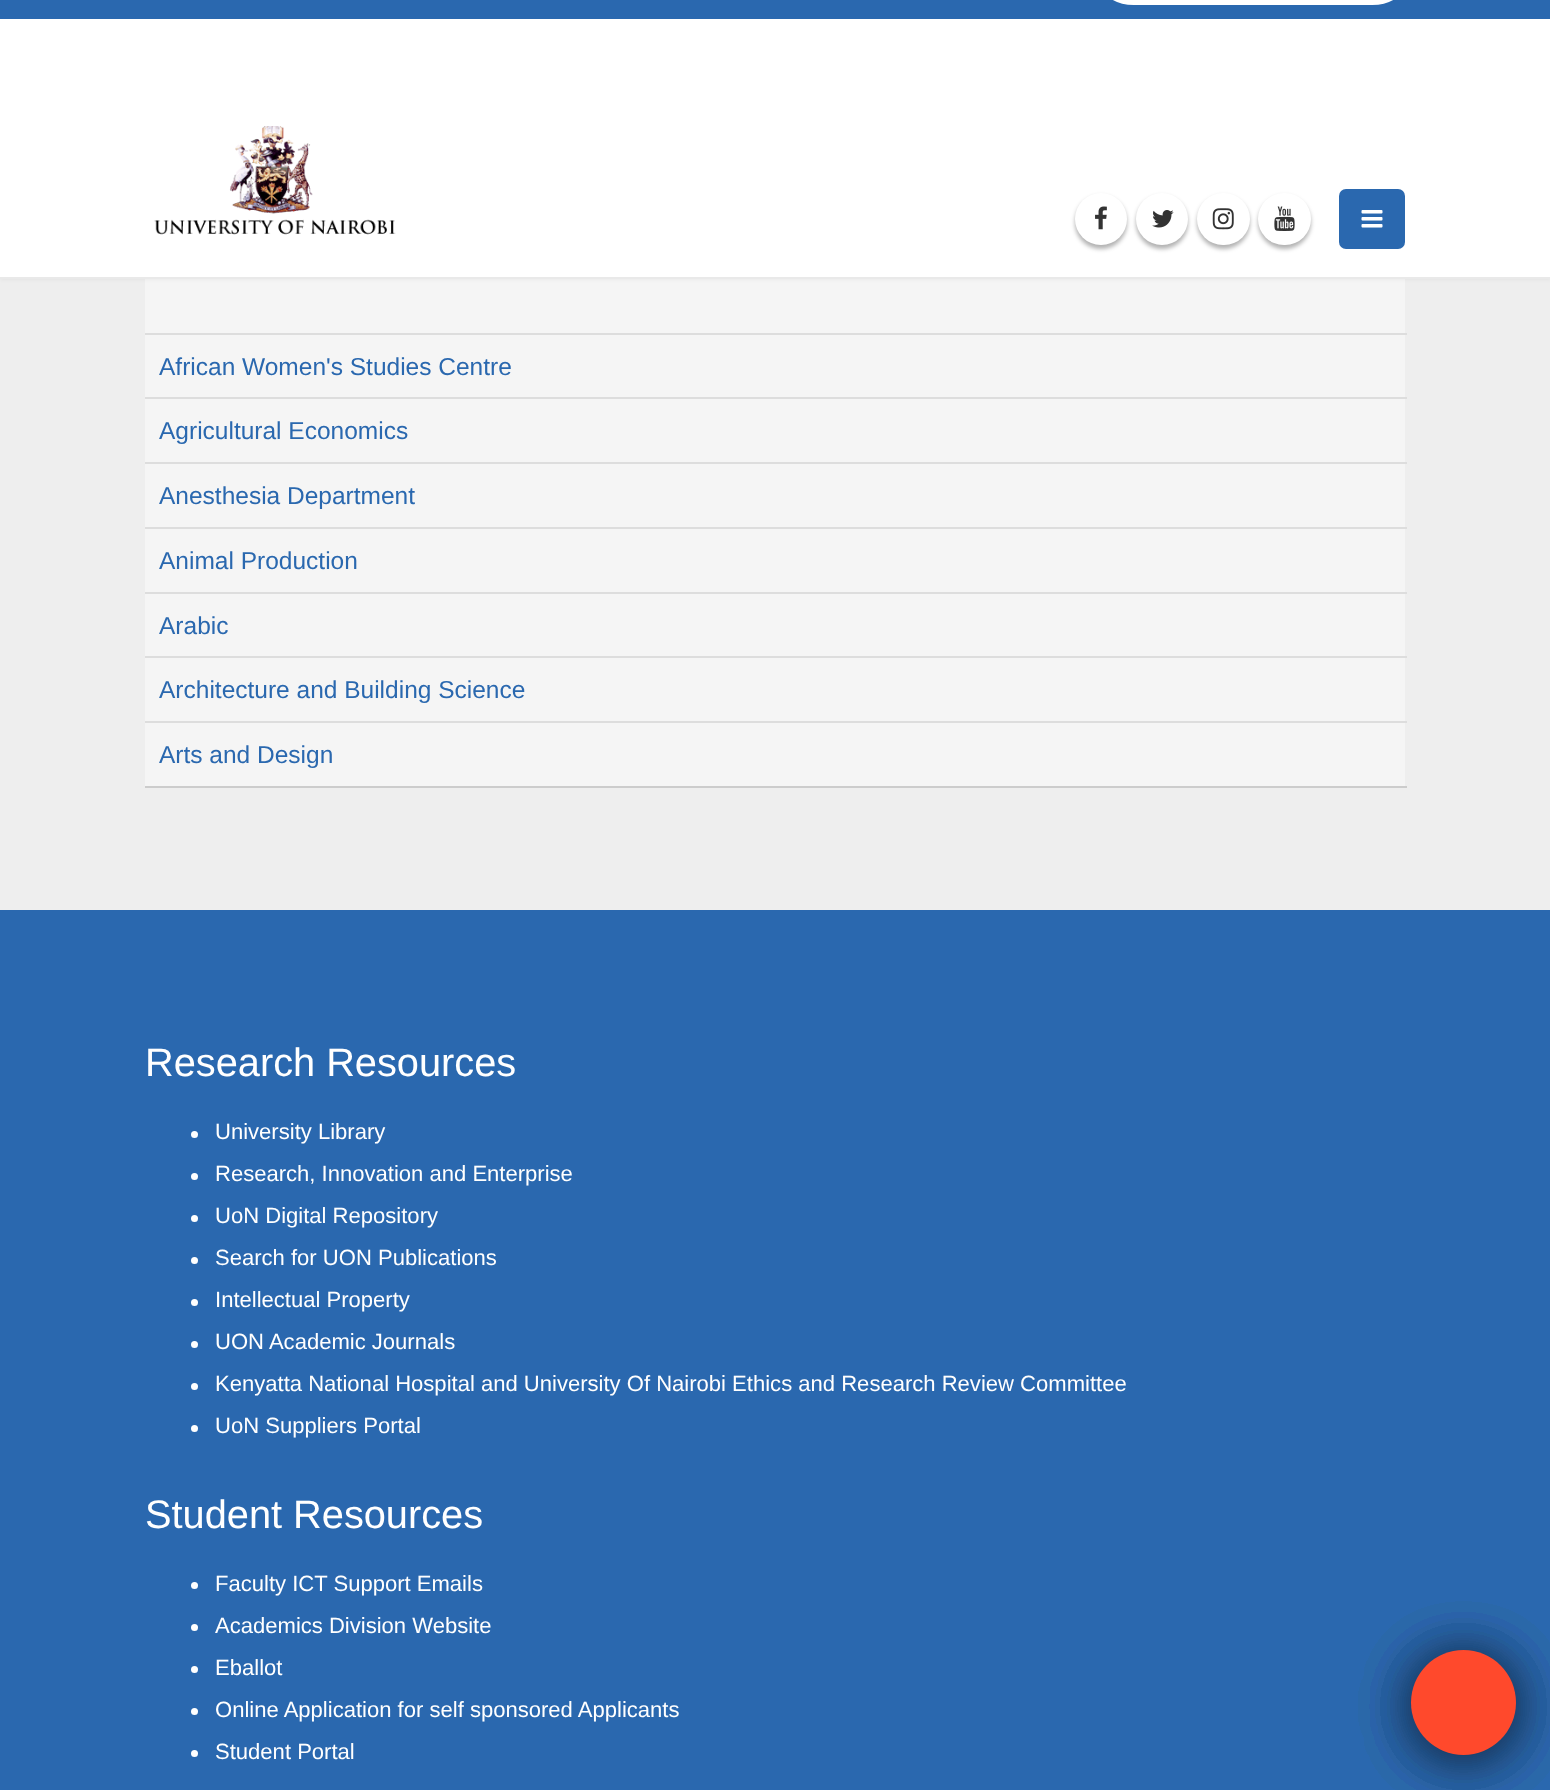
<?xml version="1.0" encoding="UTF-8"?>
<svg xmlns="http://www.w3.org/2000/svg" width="1550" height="1790">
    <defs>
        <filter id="blur1" x="-50%" y="-200%" width="200%" height="500%"><feGaussianBlur stdDeviation="2.5"/></filter>
        <filter id="blur2" x="-50%" y="-200%" width="200%" height="500%"><feGaussianBlur stdDeviation="2"/></filter>
        <filter id="blur3" x="-50%" y="-200%" width="200%" height="500%"><feGaussianBlur stdDeviation="28"/></filter>
    </defs>
    <rect width="100%" height="100%" fill="#EEEEEE"/>
    <rect x="145" y="279" width="1260" height="54" fill="#F5F5F5"/>
    <rect x="0" y="-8" width="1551" height="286" fill="#000000" fill-opacity="0.1" filter="url(#blur1)"/>
    <rect x="0" y="19" width="1550" height="258" fill="#FFFFFF"/>
    <rect x="0" y="277" width="1550" height="2" fill="#E9E9E9"/>
    <rect x="0" y="0" width="1550" height="19" fill="#2A68AF"/>
    <rect x="1104" y="-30" width="298" height="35" rx="29.5" fill="#FFFFFF"/>
    <image x="154" y="126" width="242" height="109" href="img_01.png"/>
    <rect x="1075" y="196" width="52" height="53" rx="26" fill="#000000" fill-opacity="0.3" filter="url(#blur2)"/>
    <circle cx="1101" cy="219" r="26" fill="#FFFFFF"/>
    <image x="1095" y="206" width="12" height="24" href="img_02.png"/>
    <rect x="1136" y="196" width="52" height="53" rx="26" fill="#000000" fill-opacity="0.3" filter="url(#blur2)"/>
    <circle cx="1162" cy="219" r="26" fill="#FFFFFF"/>
    <image x="1152" y="210" width="22" height="18" href="img_03.png"/>
    <rect x="1197" y="196" width="53" height="53" rx="26.5" fill="#000000" fill-opacity="0.3" filter="url(#blur2)"/>
    <rect x="1197" y="193" width="53" height="52" rx="26" fill="#FFFFFF"/>
    <image x="1212" y="208" width="22" height="22" href="img_04.png"/>
    <rect x="1258" y="196" width="53" height="53" rx="26.5" fill="#000000" fill-opacity="0.3" filter="url(#blur2)"/>
    <rect x="1258" y="193" width="53" height="52" rx="26" fill="#FFFFFF"/>
    <image x="1274" y="206" width="21" height="25" href="img_05.png"/>
    <rect x="1339" y="189" width="66" height="60" rx="7" fill="#2A68AF"/>
    <image x="1361" y="210" width="22" height="18" href="img_06.png"/>
    <rect x="145" y="335" width="1260" height="62" fill="#F5F5F5"/>
    <rect x="145" y="333" width="1262" height="2" fill="#DDDDDD"/>
    <text x="159" y="375" font-family="Liberation Sans" font-size="24.5" fill="#2A68AF">African Women's Studies Centre</text>
    <rect x="145" y="399" width="1260" height="63" fill="#F5F5F5"/>
    <rect x="145" y="397" width="1262" height="2" fill="#DDDDDD"/>
    <text x="159" y="439" font-family="Liberation Sans" font-size="24.5" fill="#2A68AF">Agricultural Economics</text>
    <rect x="145" y="464" width="1260" height="63" fill="#F5F5F5"/>
    <rect x="145" y="462" width="1262" height="2" fill="#DDDDDD"/>
    <text x="159" y="504" font-family="Liberation Sans" font-size="24.5" fill="#2A68AF">Anesthesia Department</text>
    <rect x="145" y="529" width="1260" height="63" fill="#F5F5F5"/>
    <rect x="145" y="527" width="1262" height="2" fill="#DDDDDD"/>
    <text x="159" y="569" font-family="Liberation Sans" font-size="24.5" fill="#2A68AF">Animal Production</text>
    <rect x="145" y="594" width="1260" height="62" fill="#F5F5F5"/>
    <rect x="145" y="592" width="1262" height="2" fill="#DDDDDD"/>
    <text x="159" y="634" font-family="Liberation Sans" font-size="24.5" fill="#2A68AF">Arabic</text>
    <rect x="145" y="658" width="1260" height="63" fill="#F5F5F5"/>
    <rect x="145" y="656" width="1262" height="2" fill="#DDDDDD"/>
    <text x="159" y="698" font-family="Liberation Sans" font-size="24.5" fill="#2A68AF">Architecture and Building Science</text>
    <rect x="145" y="786" width="1262" height="2" fill="#CCCCCC"/>
    <rect x="145" y="723" width="1260" height="63" fill="#F5F5F5"/>
    <rect x="145" y="721" width="1262" height="2" fill="#DDDDDD"/>
    <text x="159" y="763" font-family="Liberation Sans" font-size="24.5" fill="#2A68AF">Arts and Design</text>
    <rect x="0" y="910" width="1550" height="880" fill="#2A68AF"/>
    <text x="145" y="1076" font-family="Liberation Sans" font-size="39.75" fill="#FFFFFF">Research Resources</text>
    <circle cx="194.5" cy="1134.5" r="3.5" fill="#FFFFFF"/>
    <text x="215" y="1139" font-family="Liberation Sans" font-size="22.05" fill="#FFFFFF">University Library</text>
    <circle cx="194.5" cy="1176.5" r="3.5" fill="#FFFFFF"/>
    <text x="215" y="1181" font-family="Liberation Sans" font-size="22.05" fill="#FFFFFF">Research, Innovation and Enterprise</text>
    <circle cx="194.5" cy="1218.5" r="3.5" fill="#FFFFFF"/>
    <text x="215" y="1223" font-family="Liberation Sans" font-size="22.05" fill="#FFFFFF">UoN Digital Repository</text>
    <circle cx="194.5" cy="1260.5" r="3.5" fill="#FFFFFF"/>
    <text x="215" y="1265" font-family="Liberation Sans" font-size="22.05" fill="#FFFFFF">Search for UON Publications</text>
    <circle cx="194.5" cy="1302.5" r="3.5" fill="#FFFFFF"/>
    <text x="215" y="1307" font-family="Liberation Sans" font-size="22.05" fill="#FFFFFF">Intellectual Property</text>
    <circle cx="194.5" cy="1344.5" r="3.5" fill="#FFFFFF"/>
    <text x="215" y="1349" font-family="Liberation Sans" font-size="22.05" fill="#FFFFFF">UON Academic Journals</text>
    <circle cx="194.5" cy="1386.5" r="3.5" fill="#FFFFFF"/>
    <text x="215" y="1391" font-family="Liberation Sans" font-size="22.05" fill="#FFFFFF">Kenyatta National Hospital and University Of Nairobi Ethics and Research Review Committee</text>
    <circle cx="194.5" cy="1428.5" r="3.5" fill="#FFFFFF"/>
    <text x="215" y="1433" font-family="Liberation Sans" font-size="22.05" fill="#FFFFFF">UoN Suppliers Portal</text>
    <text x="145" y="1528" font-family="Liberation Sans" font-size="39.75" fill="#FFFFFF">Student Resources</text>
    <rect x="1411" y="1654" width="105" height="105" rx="52.5" fill="#000000" fill-opacity="0.16" filter="url(#blur3)"/>
    <rect x="1411" y="1654" width="105" height="105" rx="52.5" fill="#000000" fill-opacity="0.16" filter="url(#blur3)"/>
    <rect x="1411" y="1654" width="105" height="105" rx="52.5" fill="#000000" fill-opacity="0.16" filter="url(#blur3)"/>
    <circle cx="194.5" cy="1585.5" r="3.5" fill="#FFFFFF"/>
    <text x="215" y="1591" font-family="Liberation Sans" font-size="22.05" fill="#FFFFFF">Faculty ICT Support Emails</text>
    <circle cx="194.5" cy="1627.5" r="3.5" fill="#FFFFFF"/>
    <text x="215" y="1633" font-family="Liberation Sans" font-size="22.05" fill="#FFFFFF">Academics Division Website</text>
    <circle cx="194.5" cy="1669.5" r="3.5" fill="#FFFFFF"/>
    <text x="215" y="1675" font-family="Liberation Sans" font-size="22.05" fill="#FFFFFF">Eballot</text>
    <circle cx="194.5" cy="1711.5" r="3.5" fill="#FFFFFF"/>
    <text x="215" y="1717" font-family="Liberation Sans" font-size="22.05" fill="#FFFFFF">Online Application for self sponsored Applicants</text>
    <circle cx="194.5" cy="1753.5" r="3.5" fill="#FFFFFF"/>
    <text x="215" y="1759" font-family="Liberation Sans" font-size="22.05" fill="#FFFFFF">Student Portal</text>
    <rect x="1411" y="1654" width="105" height="105" rx="52.5" fill="#000000" fill-opacity="0.16" filter="url(#blur3)"/>
    <rect x="1411" y="1654" width="105" height="105" rx="52.5" fill="#000000" fill-opacity="0.16" filter="url(#blur3)"/>
    <rect x="1411" y="1654" width="105" height="105" rx="52.5" fill="#000000" fill-opacity="0.16" filter="url(#blur3)"/>
    <circle cx="1463.5" cy="1702.5" r="52.5" fill="#FF492C"/>
</svg>
